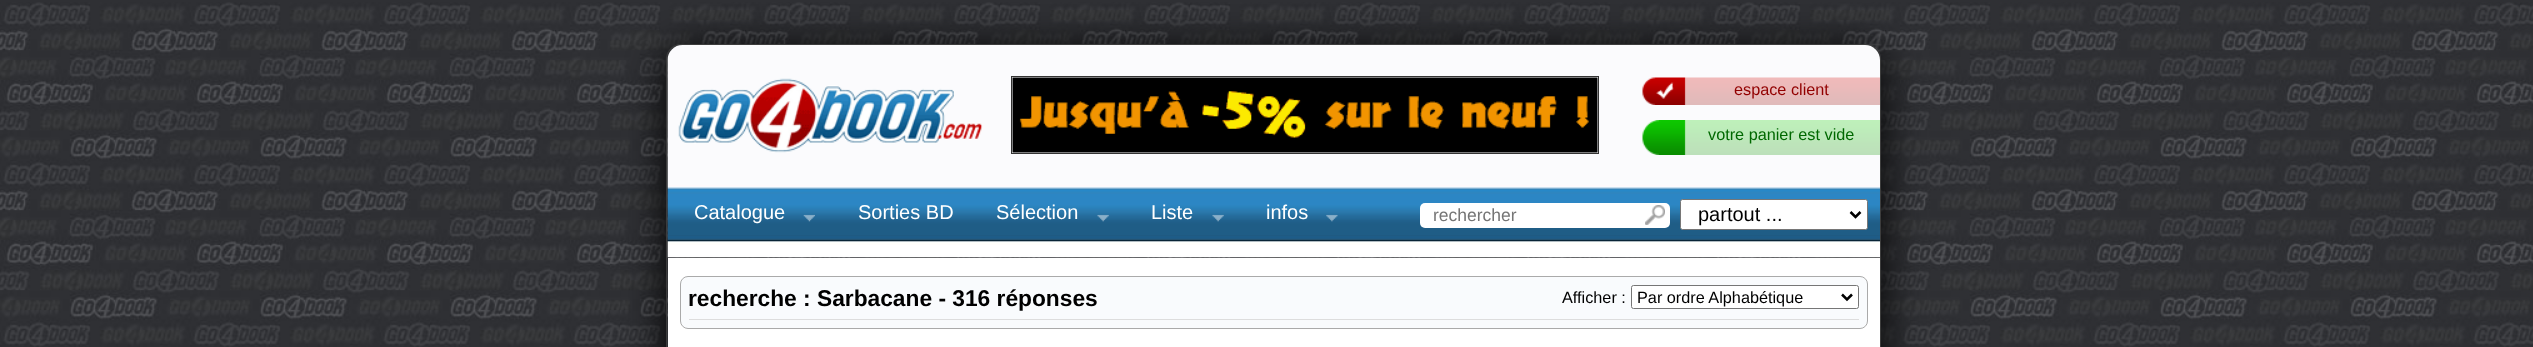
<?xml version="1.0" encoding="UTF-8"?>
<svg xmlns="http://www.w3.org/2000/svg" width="2533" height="347">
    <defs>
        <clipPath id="clip1"><path d="M 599 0 H 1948 V 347 H 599 Z M 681 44 H 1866 C 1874.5 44 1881 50.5 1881 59 V 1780 C 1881 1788.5 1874.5 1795 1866 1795 H 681 C 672.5 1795 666 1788.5 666 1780 V 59 C 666 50.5 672.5 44 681 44 Z" clip-rule="evenodd"/></clipPath>
        <filter id="blur1" x="-50%" y="-200%" width="200%" height="500%"><feGaussianBlur stdDeviation="22"/></filter>
    </defs>
    <rect width="100%" height="100%" fill="#2F3034"/>
    <image x="0" y="2" width="2533" height="345" href="img_01.png"/>
    <g clip-path="url(#clip1)">
        <rect x="666" y="50" width="1215" height="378" rx="15" fill="#000000" filter="url(#blur1)"/>
    </g>
    <rect x="666.5" y="44.5" width="1214" height="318" rx="14.5" fill="none" stroke="#3C3C3C"/>
    <image x="667" y="45" width="1213" height="213" href="img_02.png"/>
    <image x="678" y="78" width="305" height="75" href="img_03.png"/>
    <rect x="1011.5" y="76.5" width="587" height="77" fill="none" stroke="#333333"/>
    <image x="1012" y="77" width="586" height="76" href="img_04.png"/>
    <image x="1642" y="77" width="238" height="28" href="img_05.png"/>
    <text x="1734" y="95" font-family="Liberation Sans" font-size="16.25" fill="#920000">espace client</text>
    <image x="1642" y="120" width="238" height="35" href="img_06.png"/>
    <text x="1708" y="140" font-family="Liberation Sans" font-size="16.25" fill="#006800">votre panier est vide</text>
    <text x="694" y="219" font-family="Liberation Sans" font-size="20" fill="#FFFFFF">Catalogue</text>
    <image x="803" y="214" width="12" height="8" href="img_07.png"/>
    <text x="858" y="219" font-family="Liberation Sans" font-size="20" fill="#FFFFFF">Sorties BD</text>
    <text x="996" y="219" font-family="Liberation Sans" font-size="20" fill="#FFFFFF">Sélection</text>
    <image x="1097" y="214" width="12" height="8" href="img_08.png"/>
    <text x="1151" y="219" font-family="Liberation Sans" font-size="20" fill="#FFFFFF">Liste</text>
    <image x="1212" y="214" width="12" height="8" href="img_08.png"/>
    <text x="1266" y="219" font-family="Liberation Sans" font-size="20" fill="#FFFFFF">infos</text>
    <image x="1326" y="214" width="12" height="8" href="img_09.png"/>
    <rect x="1420" y="203" width="250" height="25" rx="5" fill="#FFFFFF"/>
    <image x="1645" y="205" width="20" height="20" href="img_10.png"/>
    <text x="1433" y="221" font-family="Liberation Sans" font-size="17.5" fill="#757575">rechercher</text>
    <rect x="1680.5" y="199.5" width="187" height="30" rx="2" fill="#FFFFFF" stroke="#767676"/>
    <path d="M 1850.5 212 L 1855.5 217 L 1860.5 212" fill="none" stroke="#000000" stroke-width="2.5"/>
    <text x="1698" y="221" font-family="Liberation Sans" font-size="20" fill="#000000">partout ...</text>
    <rect x="668" y="258" width="1212" height="89" fill="#FFFFFF"/>
    <rect x="680.5" y="276.5" width="1187" height="52" rx="7.5" fill="#F9FBFD" stroke="#AAAAAA"/>
    <rect x="689" y="319" width="1170" height="1" fill="#DDDDDD"/>
    <text x="688" y="306" font-family="Liberation Sans" font-size="22.75" font-weight="700" fill="#000000">recherche : Sarbacane - 316 réponses</text>
    <text x="1562" y="303" font-family="Liberation Sans" font-size="16.25" fill="#000000">Afficher :</text>
    <rect x="1631.5" y="285.5" width="227" height="23" rx="2" fill="#FFFFFF" stroke="#767676"/>
    <path d="M 1842 294.5 L 1847 299.5 L 1852 294.5" fill="none" stroke="#000000" stroke-width="2.5"/>
    <text x="1637" y="303" font-family="Liberation Sans" font-size="16.25" fill="#000000">Par ordre Alphabétique</text>
</svg>
